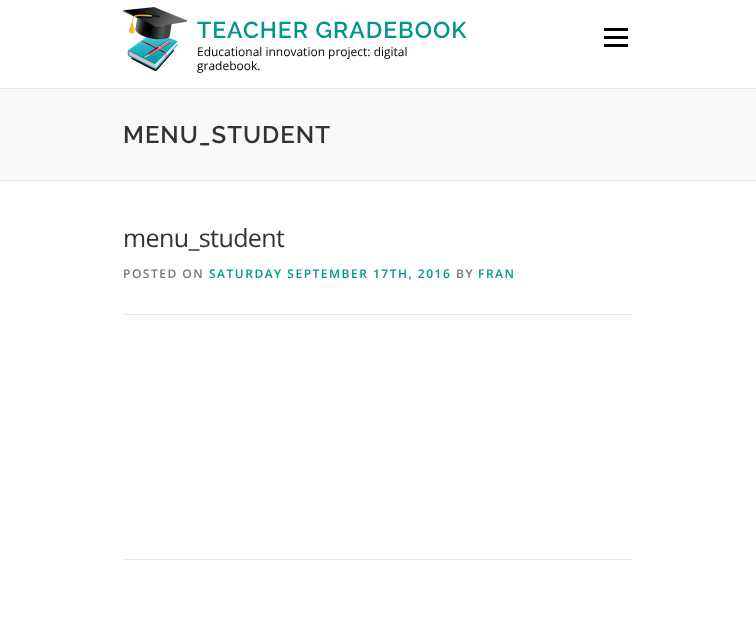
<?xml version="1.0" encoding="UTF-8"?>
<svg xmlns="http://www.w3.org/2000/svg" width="756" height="618">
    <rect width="100%" height="100%" fill="#FFFFFF"/>
    <image x="123" y="7" width="64" height="64" href="img_01.png"/>
    <text x="197" y="38" font-family="Raleway" font-size="23" font-weight="600" letter-spacing="1" fill="#009688">TEACHER GRADEBOOK</text>
    <text font-family="Open Sans" font-size="12" fill="#000000">
        <tspan x="197" y="56">Educational innovation project: digital</tspan>
        <tspan x="197" y="70">gradebook.</tspan>
    </text>
    <rect x="604" y="36" width="24" height="3" fill="#000000"/>
    <rect x="604" y="28" width="24" height="3" fill="#000000"/>
    <rect x="604" y="44" width="24" height="3" fill="#000000"/>
    <rect x="0" y="89" width="756" height="91" fill="#F8F9F9"/>
    <rect x="0" y="88" width="756" height="1" fill="#E9E9E9"/>
    <rect x="0" y="180" width="756" height="1" fill="#E9E9E9"/>
    <text x="123" y="143" font-family="Raleway" font-size="24" font-weight="600" letter-spacing="1" fill="#333333">MENU_STUDENT</text>
    <text x="123" y="247" font-family="Open Sans" font-size="25" letter-spacing="-0.6" fill="#333333">menu_student</text>
    <rect x="123" y="314" width="510" height="1" fill="#E9E9E9"/>
    <text x="123" y="278" font-family="Open Sans" font-size="12" font-weight="600" letter-spacing="1.5" fill="#777777">POSTED ON</text>
    <text x="209" y="278" font-family="Open Sans" font-size="12" font-weight="600" letter-spacing="1.5" fill="#009688">SATURDAY SEPTEMBER 17TH, 2016</text>
    <text x="456" y="278" font-family="Open Sans" font-size="12" font-weight="600" letter-spacing="1.5" fill="#777777">BY</text>
    <text x="478" y="278" font-family="Open Sans" font-size="12" font-weight="600" letter-spacing="1.5" fill="#009688">FRAN</text>
    <rect x="123" y="559" width="510" height="1" fill="#E9E9E9"/>
</svg>
